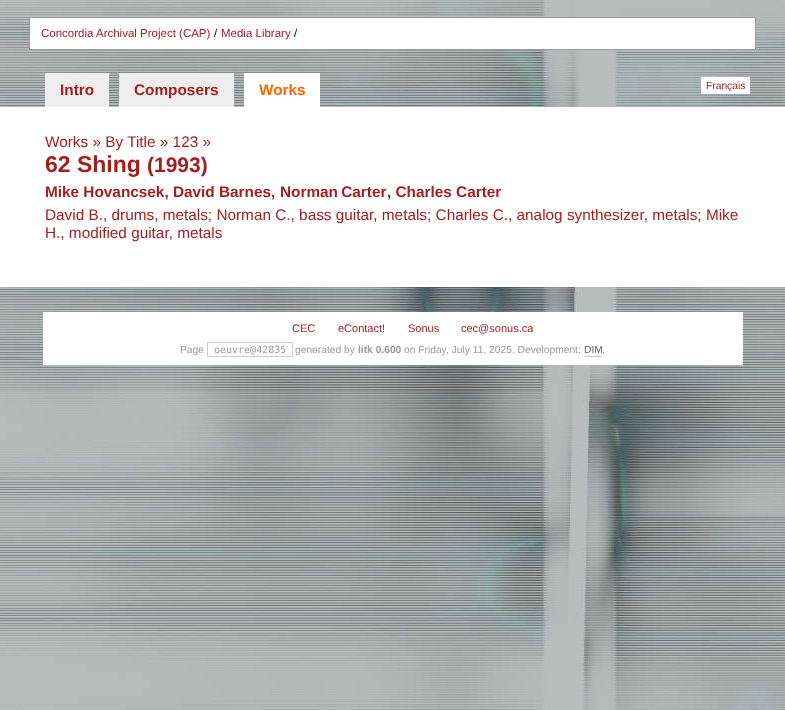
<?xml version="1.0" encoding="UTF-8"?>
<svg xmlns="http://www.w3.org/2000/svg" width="785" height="710">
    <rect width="100%" height="100%" fill="#FFFFFF"/>
    <image x="0" y="0" width="785" height="710" href="img_01.png"/>
    <rect x="29.5" y="17.5" width="726" height="32" fill="#FFFFFF" stroke="#999999"/>
    <text x="41" y="37" font-family="Liberation Sans" font-size="11.5" fill="#A31F1F">Concordia Archival Project (CAP)</text>
    <text x="214" y="37" font-family="Liberation Sans" font-size="11.5" fill="#000000">/</text>
    <text x="221" y="37" font-family="Liberation Sans" font-size="11.5" fill="#A31F1F">Media Library</text>
    <text x="294" y="37" font-family="Liberation Sans" font-size="11.5" fill="#000000">/</text>
    <rect x="45" y="73" width="64" height="34" fill="#EEEEEE"/>
    <text x="60" y="95" font-family="Liberation Sans" font-size="15.35" font-weight="700" fill="#A31F1F">Intro</text>
    <rect x="119" y="73" width="115" height="34" fill="#EEEEEE"/>
    <text x="134" y="95" font-family="Liberation Sans" font-size="15.35" font-weight="700" fill="#A31F1F">Composers</text>
    <rect x="244" y="73" width="76" height="34" fill="#FFFFFF"/>
    <text x="259" y="95" font-family="Liberation Sans" font-size="15.35" font-weight="700" fill="#FF6600">Works</text>
    <rect x="701" y="77" width="49" height="17" fill="#FFFFFF"/>
    <text x="706" y="89" font-family="Liberation Sans" font-size="10.25" fill="#A31F1F">Français</text>
    <rect x="0" y="107" width="785" height="180" fill="#FFFFFF"/>
    <text x="45" y="147" font-family="Liberation Sans" font-size="15.35" fill="#A31F1F">Works » By Title » 123 »</text>
    <text x="45" y="172" font-family="Liberation Sans" font-size="23" font-weight="700" fill="#A31F1F">62 Shing</text>
    <text x="147" y="172" font-family="Liberation Sans" font-size="21" font-weight="700" fill="#A31F1F">(1993)</text>
    <text x="45" y="197" font-family="Liberation Sans" font-size="15.35" font-weight="700" fill="#A31F1F">Mike Hovancsek, David Barnes,</text>
    <text x="280" y="197" word-spacing="-1" font-family="Liberation Sans" font-size="15.35" font-weight="700" fill="#A31F1F">Norman Carter</text>
    <text x="387" y="197" font-family="Liberation Sans" font-size="15.35" font-weight="700" fill="#A31F1F">, Charles Carter</text>
    <text font-family="Liberation Sans" font-size="15.35" fill="#A31F1F">
        <tspan x="45" y="220">David B., drums, metals; Norman C., bass guitar, metals; Charles C., analog synthesizer, metals; Mike</tspan>
        <tspan x="45" y="238">H., modified guitar, metals</tspan>
    </text>
    <rect x="43" y="312" width="700" height="53" fill="#FFFFFF"/>
    <text x="292" y="332" font-family="Liberation Sans" font-size="11" fill="#A31F1F">CEC</text>
    <text x="338" y="332" font-family="Liberation Sans" font-size="11" fill="#A31F1F">eContact!</text>
    <text x="408" y="332" font-family="Liberation Sans" font-size="11" fill="#A31F1F">Sonus</text>
    <text x="461" y="332" font-family="Liberation Sans" font-size="11" fill="#A31F1F">cec@sonus.ca</text>
    <text x="180" y="353" font-family="Liberation Sans" font-size="10.25" fill="#999999">Page</text>
    <rect x="207.5" y="342.5" width="85" height="14" fill="none" stroke="#CCCCCC"/>
    <text x="214" y="353" font-family="DejaVu Sans Mono" font-size="10" fill="#999999">oeuvre@42835</text>
    <text x="295" y="353" font-family="Liberation Sans" font-size="10.25" fill="#999999">generated by</text>
    <text x="358" y="353" font-family="Liberation Sans" font-size="10.25" font-weight="700" fill="#999999">litk 0.600</text>
    <text x="404" y="353" font-family="Liberation Sans" font-size="10.25" fill="#999999">on Friday, July 11, 2025. Development:</text>
    <text x="584" y="353" font-family="Liberation Sans" font-size="10.25" fill="#666666">DIM</text>
    <rect x="584" y="356" width="18" height="1" fill="#CCCCCC"/>
    <text x="602" y="353" font-family="Liberation Sans" font-size="10.25" fill="#999999">.</text>
</svg>
